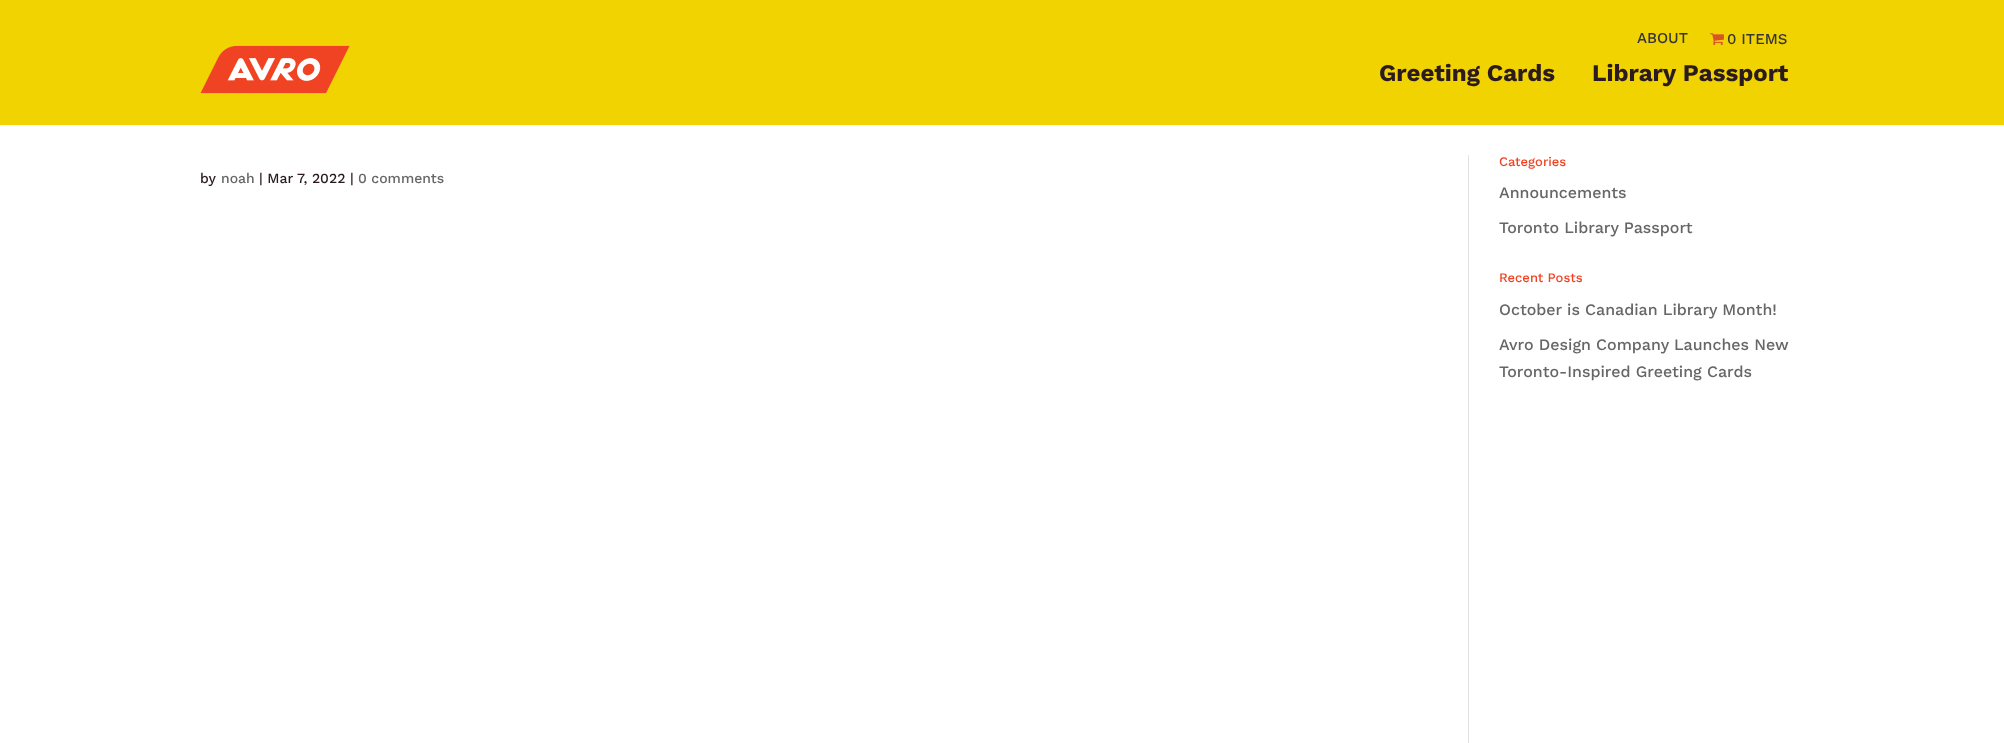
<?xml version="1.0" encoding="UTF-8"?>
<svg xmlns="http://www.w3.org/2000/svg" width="2004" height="743">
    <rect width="100%" height="100%" fill="#FFFFFF"/>
    <rect x="0" y="0" width="2004" height="125" fill="#F1D302"/>
    <text x="1637" y="43" font-family="Work Sans" font-size="15" font-weight="500" fill="#363537">ABOUT</text>
    <image x="1710" y="33" width="14" height="12" href="img_01.png"/>
    <text x="1727" y="44" font-family="Work Sans" font-size="15" font-weight="500" fill="#363537">0 ITEMS</text>
    <image x="200" y="45" width="150" height="49" href="img_02.png"/>
    <text x="1379" y="81" font-family="Work Sans" font-size="24" font-weight="700" fill="#2B1B1F">Greeting Cards</text>
    <text x="1592" y="81" font-family="Work Sans" font-size="24" font-weight="700" fill="#2B1B1F">Library Passport</text>
    <rect x="1468" y="155" width="1" height="588" fill="#E2E2E2"/>
    <text x="200" y="183" font-family="Work Sans" font-size="14" font-weight="500" fill="#2B1B1F">by</text>
    <text x="221" y="183" font-family="Work Sans" font-size="14" font-weight="500" fill="#666666">noah</text>
    <text x="259" y="183" font-family="Work Sans" font-size="14" font-weight="500" fill="#2B1B1F">| Mar 7, 2022 |</text>
    <text x="358" y="183" font-family="Work Sans" font-size="14" font-weight="500" fill="#666666">0 comments</text>
    <text x="1499" y="166" font-family="Work Sans" font-size="13" font-weight="500" fill="#EF4323">Categories</text>
    <text x="1499" y="198" font-family="Work Sans" font-size="16" font-weight="500" fill="#666666">Announcements</text>
    <text x="1499" y="233" font-family="Work Sans" font-size="16" font-weight="500" fill="#666666">Toronto Library Passport</text>
    <text x="1499" y="282" font-family="Work Sans" font-size="13" font-weight="500" fill="#EF4323">Recent Posts</text>
    <text x="1499" y="315" font-family="Work Sans" font-size="16" font-weight="500" fill="#666666">October is Canadian Library Month!</text>
    <text font-family="Work Sans" font-size="16" font-weight="500" fill="#666666">
        <tspan x="1499" y="350">Avro Design Company Launches New</tspan>
        <tspan x="1499" y="377">Toronto-Inspired Greeting Cards</tspan>
    </text>
</svg>
